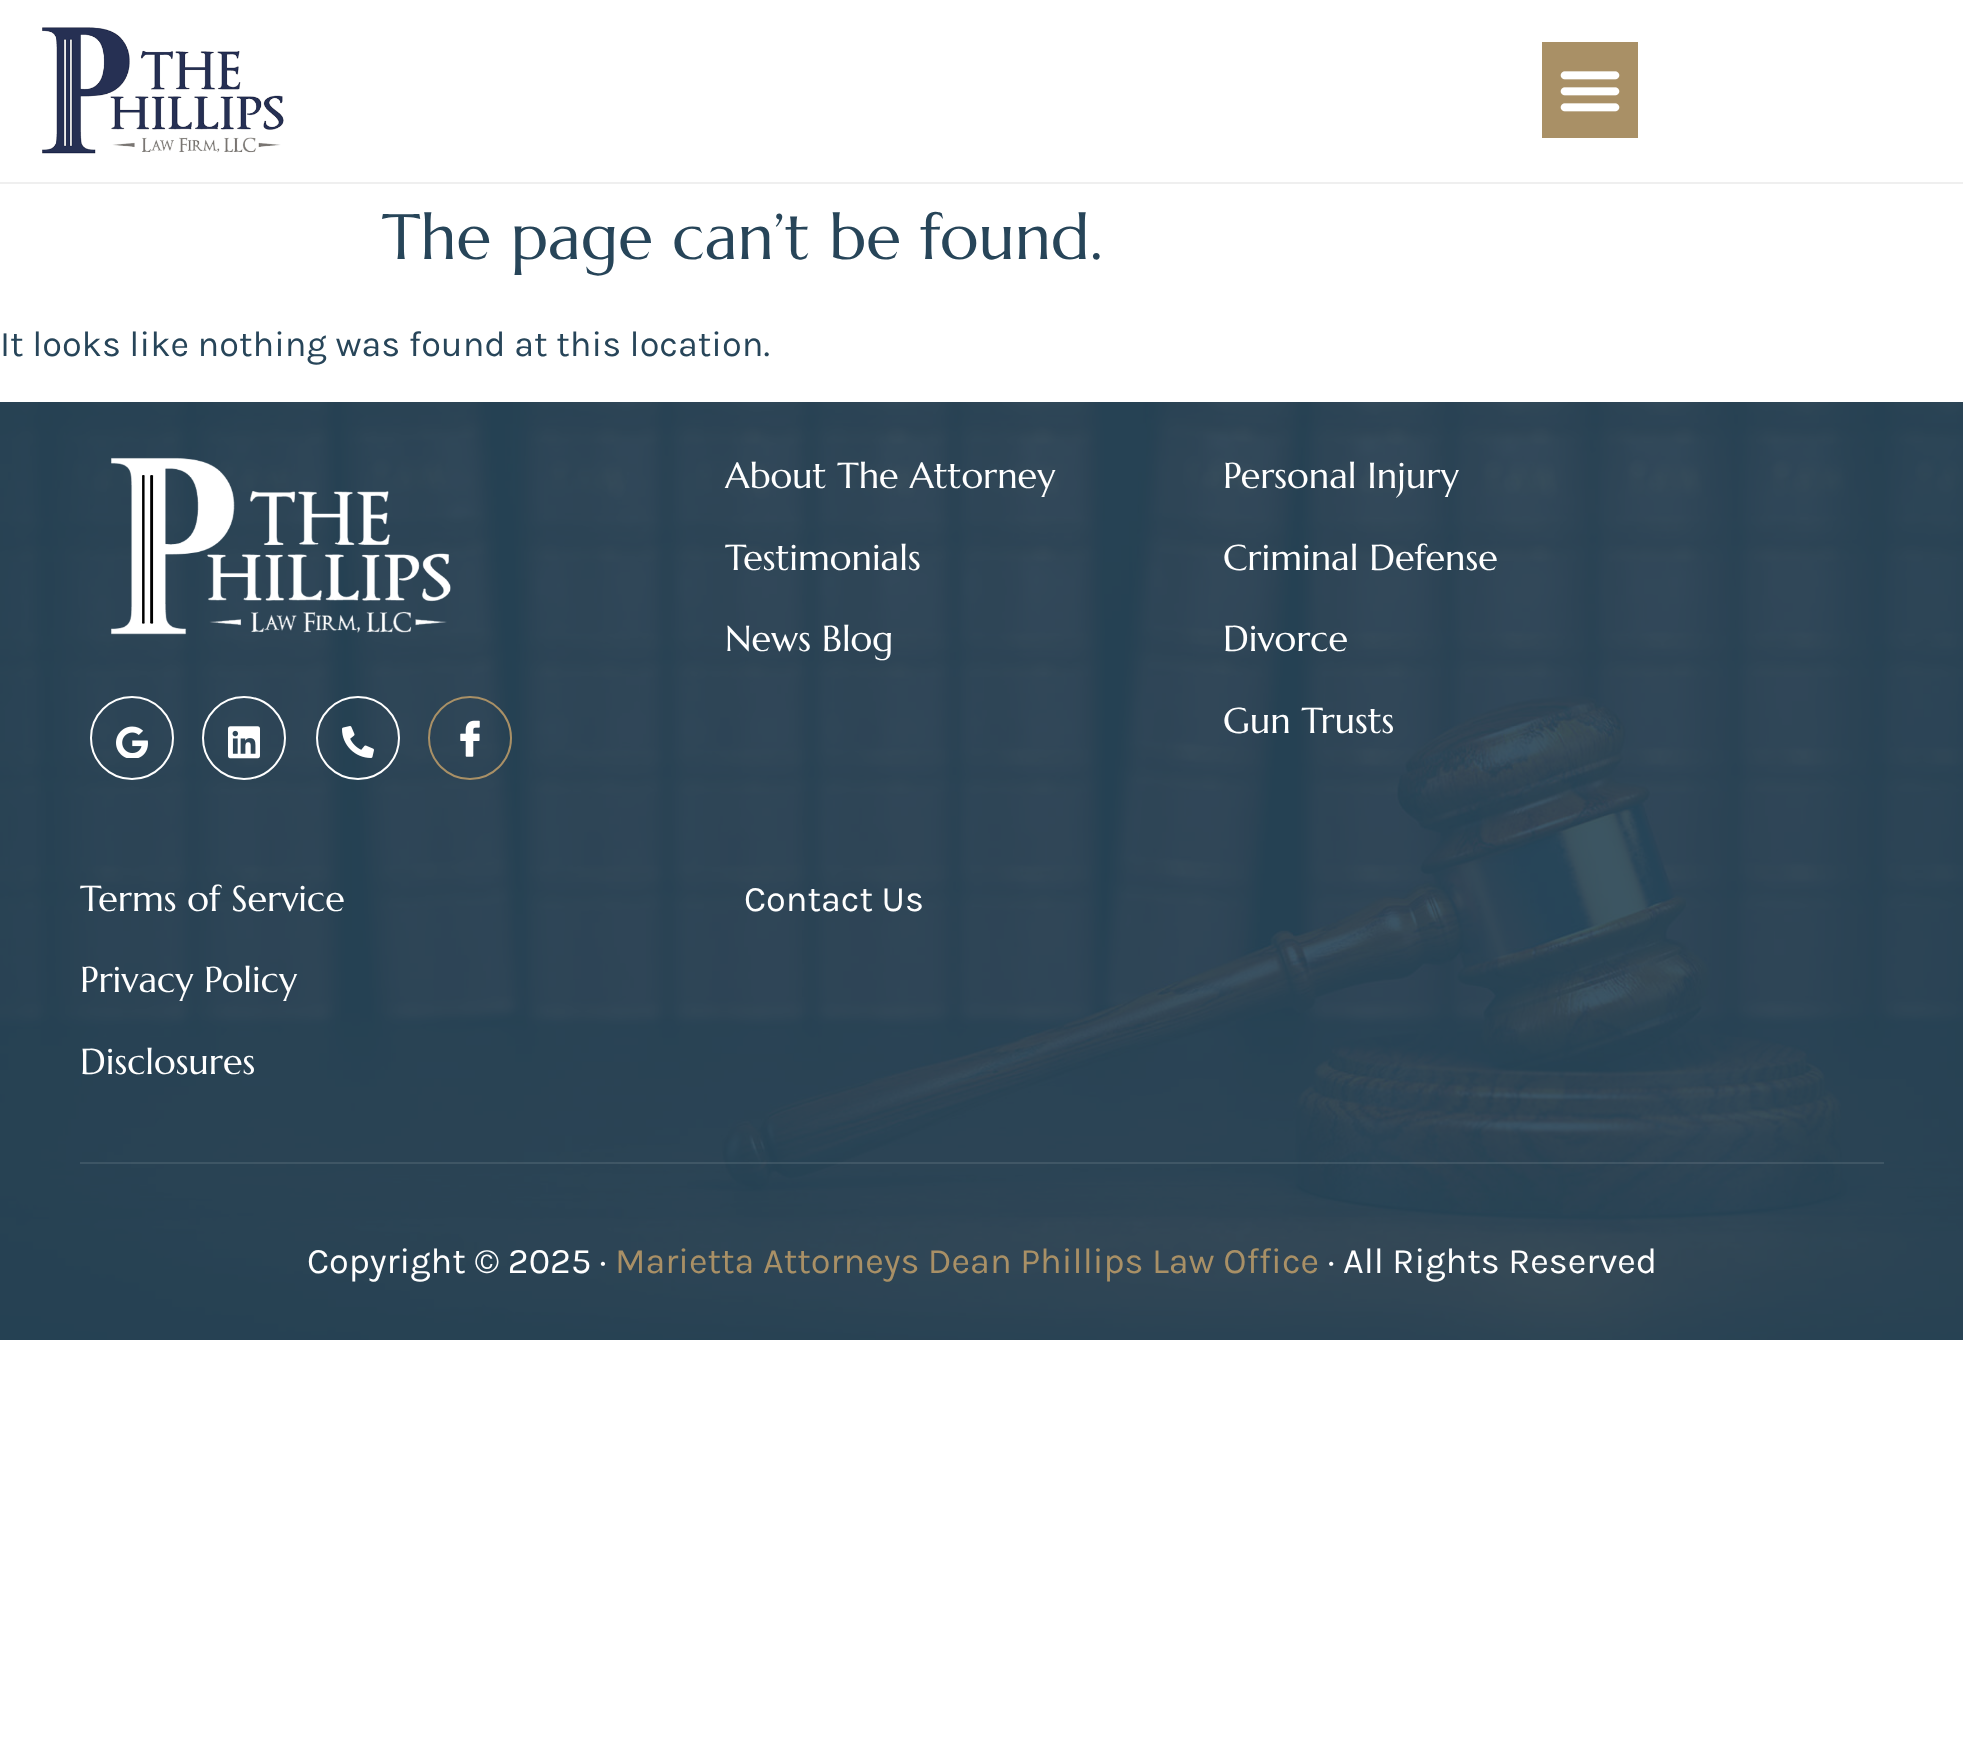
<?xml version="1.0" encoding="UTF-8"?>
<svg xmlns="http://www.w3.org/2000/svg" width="1963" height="1752">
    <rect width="100%" height="100%" fill="#FFFFFF"/>
    <rect x="0" y="182" width="1963" height="2" fill="#EFEFEF"/>
    <image x="42" y="27" width="242" height="127" href="img_01.png"/>
    <rect x="1542" y="42" width="96" height="96" fill="#A99066"/>
    <image x="1560" y="71" width="60" height="41" href="img_02.png"/>
    <text x="382" y="259" font-family="Marcellus" font-size="64" fill="#274559">The page can’t be found.</text>
    <text x="0" y="356" font-family="Karla" font-size="36" fill="#274559">It looks like nothing was found at this location.</text>
    <image x="0" y="402" width="1963" height="938" href="img_03.png"/>
    <image x="111" y="457" width="340" height="178" href="img_04.png"/>
    <circle cx="132" cy="738" r="41" fill="none" stroke="#FFFFFF" stroke-width="2"/>
    <image x="116" y="726" width="32" height="32" href="img_05.png"/>
    <circle cx="244" cy="738" r="41" fill="none" stroke="#FFFFFF" stroke-width="2"/>
    <image x="228" y="726" width="32" height="33" href="img_06.png"/>
    <circle cx="358" cy="738" r="41" fill="none" stroke="#FFFFFF" stroke-width="2"/>
    <image x="342" y="726" width="32" height="32" href="img_07.png"/>
    <circle cx="470" cy="738" r="41" fill="none" stroke="#A99066" stroke-width="2"/>
    <image x="460" y="720" width="20" height="37" href="img_08.png"/>
    <text x="725" y="488" font-family="Marcellus" font-size="36" fill="#FFFFFF">About The Attorney</text>
    <text x="725" y="570" font-family="Marcellus" font-size="36" fill="#FFFFFF">Testimonials</text>
    <text x="725" y="651" font-family="Marcellus" font-size="36" fill="#FFFFFF">News Blog</text>
    <text x="1223" y="488" font-family="Marcellus" font-size="36" fill="#FFFFFF">Personal Injury</text>
    <text x="1223" y="570" font-family="Marcellus" font-size="36" fill="#FFFFFF">Criminal Defense</text>
    <text x="1223" y="651" font-family="Marcellus" font-size="36" fill="#FFFFFF">Divorce</text>
    <text x="1223" y="733" font-family="Marcellus" font-size="36" fill="#FFFFFF">Gun Trusts</text>
    <text x="80" y="911" font-family="Marcellus" font-size="36" fill="#FFFFFF">Terms of Service</text>
    <text x="80" y="992" font-family="Marcellus" font-size="36" fill="#FFFFFF">Privacy Policy</text>
    <text x="80" y="1074" font-family="Marcellus" font-size="36" fill="#FFFFFF">Disclosures</text>
    <text x="744" y="911" font-family="Karla" font-size="36" fill="#FFFFFF">Contact Us</text>
    <rect x="80" y="1162" width="1804" height="2" fill="#FFFFFF" fill-opacity="0.1"/>
    <text x="307" y="1273" font-family="Karla" font-size="36" fill="#FFFFFF">Copyright © 2025 ·</text>
    <text x="615" y="1273" font-family="Karla" font-size="36" fill="#A99066">Marietta Attorneys Dean Phillips Law Office</text>
    <text x="1328" y="1273" font-family="Karla" font-size="36" fill="#FFFFFF">· All Rights Reserved</text>
</svg>
